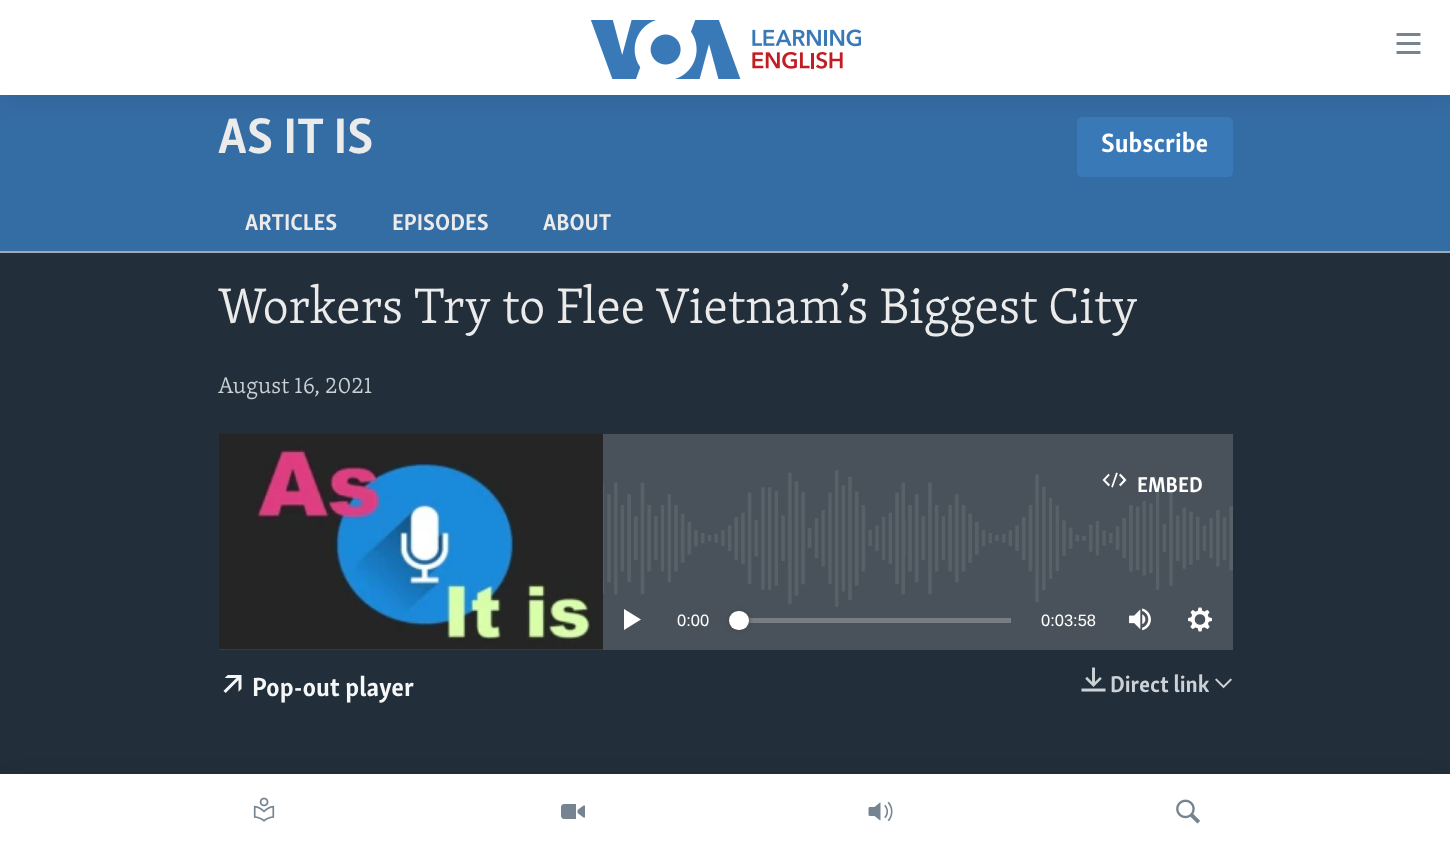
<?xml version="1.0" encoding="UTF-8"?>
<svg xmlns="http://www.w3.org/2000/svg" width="1450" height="848">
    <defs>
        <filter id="blur1" x="-50%" y="-200%" width="200%" height="500%"><feGaussianBlur stdDeviation="15"/></filter>
        <filter id="blur2" x="-50%" y="-200%" width="200%" height="500%"><feGaussianBlur stdDeviation="2"/></filter>
    </defs>
    <rect width="100%" height="100%" fill="#346CA4"/>
    <rect x="1077" y="117" width="156" height="60" rx="5" fill="#3A79B7"/>
    <rect x="0" y="0" width="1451" height="95" fill="#000000" fill-opacity="0.1" filter="url(#blur1)"/>
    <rect x="0" y="0" width="1450" height="95" fill="#FFFFFF"/>
    <image x="591" y="20" width="270" height="59" href="img_01.png"/>
    <image x="1396" y="33" width="25" height="21" href="img_02.png"/>
    <rect x="0" y="253" width="1450" height="521" fill="#222F3A"/>
    <rect x="0" y="774" width="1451" height="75" fill="#000000" fill-opacity="0.1" filter="url(#blur1)"/>
    <rect x="0" y="774" width="1450" height="74" fill="#FFFFFF"/>
    <image x="253" y="797" width="22" height="25" href="img_03.png"/>
    <image x="561" y="804" width="24" height="15" href="img_04.png"/>
    <image x="868" y="801" width="25" height="21" href="img_05.png"/>
    <image x="1176" y="799" width="24" height="25" href="img_06.png"/>
    <text x="218" y="153" font-family="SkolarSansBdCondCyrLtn" font-size="51.25" font-weight="700" fill="#EBEBEB">AS IT IS</text>
    <text x="1101" y="152" font-family="SkolarSansBdCondCyrLtn" font-size="27" font-weight="700" fill="#FFFFFF">Subscribe</text>
    <text x="245" y="230" font-family="SkolarSansBdCondCyrLtn" font-size="23.5" font-weight="700" fill="#EBEBEB">ARTICLES</text>
    <text x="392" y="230" font-family="SkolarSansBdCondCyrLtn" font-size="23.5" font-weight="700" fill="#EBEBEB">EPISODES</text>
    <text x="543" y="230" font-family="SkolarSansBdCondCyrLtn" font-size="23.5" font-weight="700" fill="#EBEBEB">ABOUT</text>
    <rect x="0" y="251" width="1450" height="2" fill="#A1AAB4"/>
    <text x="218" y="323" font-family="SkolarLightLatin" font-size="51.25" font-weight="300" fill="#EBEBEB">Workers Try to Flee Vietnam’s Biggest City</text>
    <text x="218" y="393" font-family="SkolarLightLatin" font-size="23.5" font-weight="300" fill="#CBD1D6">August 16, 2021</text>
    <rect x="219" y="434" width="1014" height="216" fill="#49525A"/>
    <image x="603" y="470" width="630" height="137" href="img_07.png"/>
    <image x="219" y="433" width="384" height="217" href="img_08.png"/>
    <image x="1102" y="472" width="25" height="16" href="img_09.png"/>
    <text x="1137" y="492" font-family="SkolarSansBdCondCyrLtn" font-size="22" font-weight="700" fill="#FFFFFF">EMBED</text>
    <path d="M 624 630 L 641 619.5 L 624 609 Z" fill="#FFFFFF"/>
    <text x="677" y="626" font-family="Liberation Sans" font-size="16.5" fill="#FFFFFF">0:00</text>
    <rect x="740" y="618" width="271" height="5" fill="#777D83"/>
    <rect x="729" y="611" width="20" height="19" rx="9.5" fill="#414144" filter="url(#blur2)"/>
    <rect x="729" y="611" width="20" height="19" rx="9.5" fill="#FFFFFF"/>
    <text x="1041" y="626" font-family="Liberation Sans" font-size="16.5" fill="#FFFFFF">0:03:58</text>
    <image x="1129" y="608" width="22" height="23" href="img_10.png"/>
    <image x="1188" y="607" width="24" height="25" href="img_11.png"/>
    <image x="223" y="675" width="19" height="18" href="img_12.png"/>
    <text x="252" y="696" font-family="SkolarSansBdCondCyrLtn" font-size="27" font-weight="700" fill="#F6F7F8">Pop-out player</text>
    <image x="1081" y="667" width="25" height="25" href="img_13.png"/>
    <text x="1110" y="692" font-family="SkolarSansBdCondCyrLtn" font-size="23.5" font-weight="700" fill="#CBD1D6">Direct link</text>
    <image x="1215" y="678" width="17" height="11" href="img_14.png"/>
</svg>
